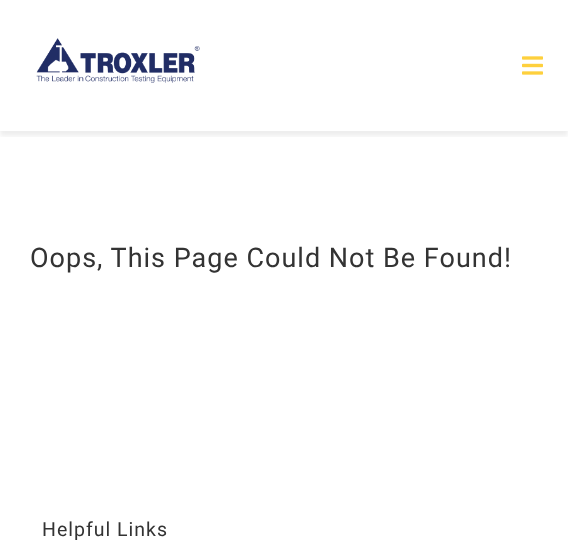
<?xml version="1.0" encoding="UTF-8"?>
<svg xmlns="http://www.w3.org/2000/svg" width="568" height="540">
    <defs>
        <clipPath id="clip1"><rect x="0" y="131" width="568" height="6"/></clipPath>
        <filter id="blur1" x="-50%" y="-200%" width="200%" height="500%"><feGaussianBlur stdDeviation="2.5"/></filter>
    </defs>
    <rect width="100%" height="100%" fill="#FFFFFF"/>
    <g clip-path="url(#clip1)">
        <rect x="0" y="5" width="568" height="131" fill="#000000" fill-opacity="0.07" filter="url(#blur1)"/>
    </g>
    <image x="36" y="38" width="164" height="45" href="img_01.png"/>
    <image x="522" y="56" width="21" height="19" href="img_02.png"/>
    <text x="30" y="267" font-family="Roboto" font-size="27" letter-spacing="1" fill="#333333">Oops, This Page Could Not Be Found!</text>
    <text x="42" y="536" font-family="Roboto" font-size="19.5" letter-spacing="1" fill="#333333">Helpful Links</text>
</svg>
